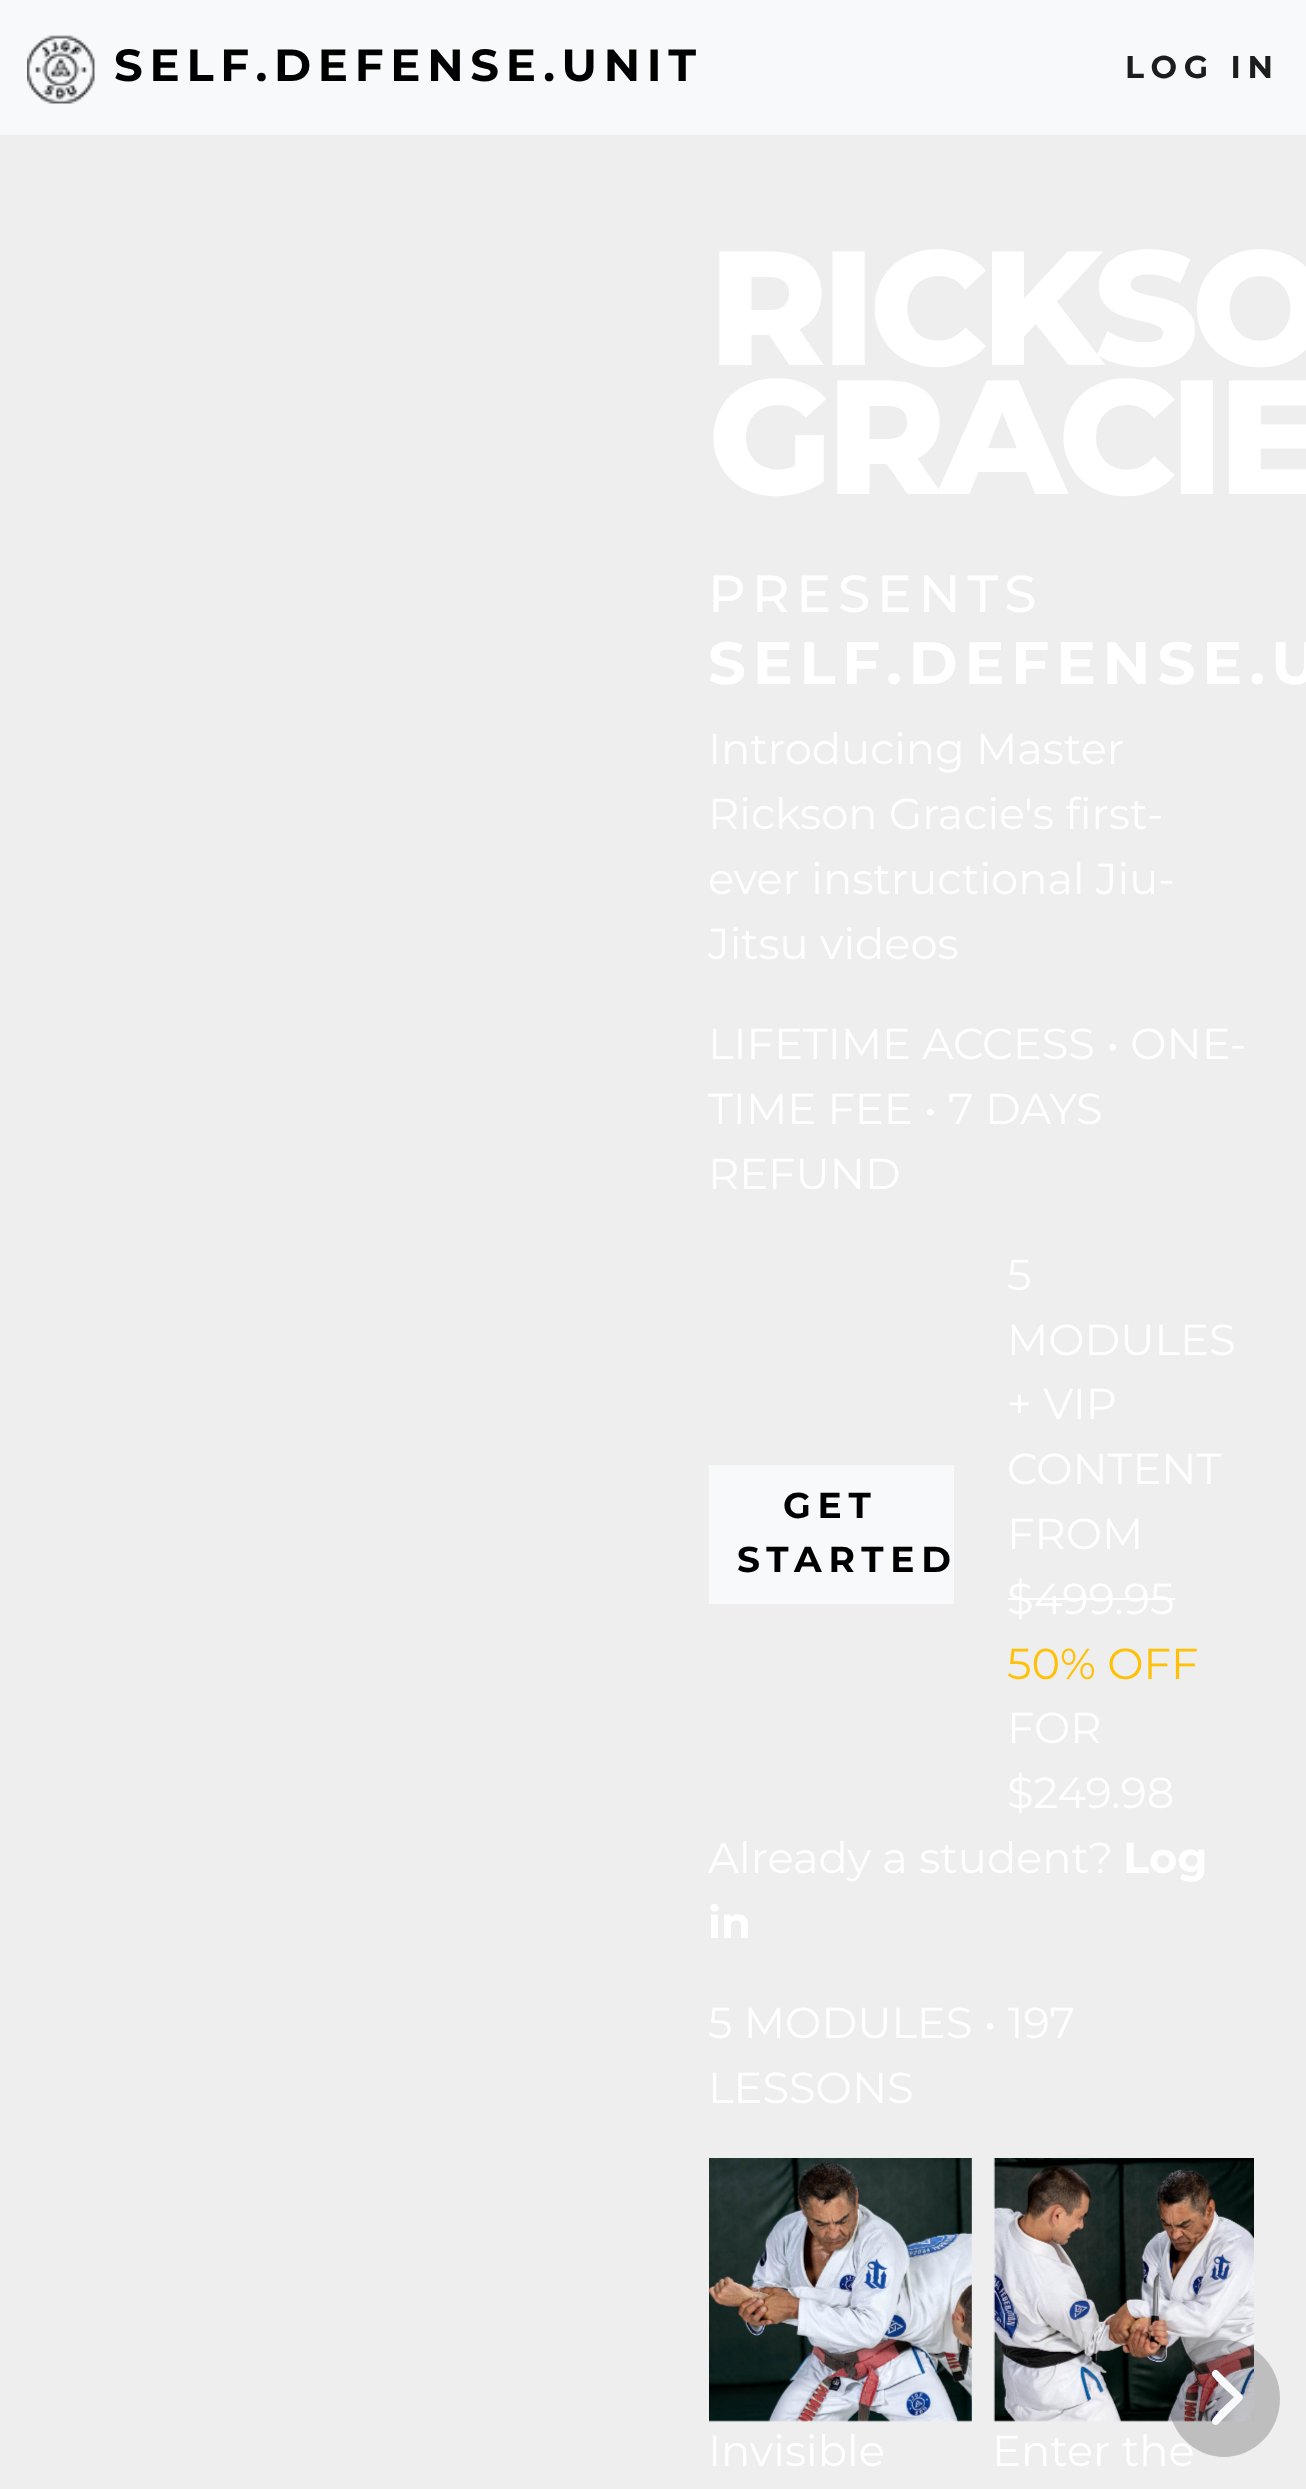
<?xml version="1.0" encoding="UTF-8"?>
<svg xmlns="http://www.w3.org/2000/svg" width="1306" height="2489">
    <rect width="100%" height="100%" fill="#EEEEEE"/>
    <rect x="0" y="0" width="1306" height="135" fill="#F8F9FA"/>
    <image x="27" y="35" width="68" height="69" href="img_01.png"/>
    <text x="114" y="81" font-family="Montserrat" font-size="45" font-weight="700" letter-spacing="6.75" fill="#000000">SELF.DEFENSE.UNIT</text>
    <text x="1125" y="78" font-family="Montserrat" font-size="31.5" font-weight="700" letter-spacing="6.75" fill="#1D1D1D">LOG IN</text>
    <text font-family="Montserrat" font-size="162" font-weight="800" letter-spacing="-6.75" fill="#FFFFFF">
        <tspan x="708" y="365">RICKSO</tspan>
        <tspan x="708" y="494">GRACIE</tspan>
    </text>
    <text x="708" y="612" font-family="Montserrat" font-size="52" font-weight="500" letter-spacing="6.75" fill="#FFFFFF">PRESENTS</text>
    <text x="708" y="684" font-family="Montserrat" font-size="59.5" font-weight="700" letter-spacing="6.75" fill="#FFFFFF">SELF.DEFENSE.U</text>
    <text font-family="Montserrat" font-size="43.25" fill="#FFFFFF">
        <tspan x="708" y="764">Introducing Master</tspan>
        <tspan x="708" y="829">Rickson Gracie's first-</tspan>
        <tspan x="708" y="894">ever instructional Jiu-</tspan>
        <tspan x="708" y="959">Jitsu videos</tspan>
    </text>
    <text font-family="Montserrat" font-size="43.25" fill="#FFFFFF">
        <tspan x="708" y="1059">LIFETIME ACCESS • ONE-</tspan>
        <tspan x="708" y="1124">TIME FEE • 7 DAYS</tspan>
        <tspan x="708" y="1189">REFUND</tspan>
    </text>
    <rect x="709" y="1465" width="245" height="139" fill="#F8F9FA"/>
    <text x="783" y="1518" font-family="Montserrat" font-size="36" font-weight="700" letter-spacing="6.75" fill="#000000">GET</text>
    <text x="737" y="1572" font-family="Montserrat" font-size="36" font-weight="700" letter-spacing="6.75" fill="#000000">STARTED</text>
    <text font-family="Montserrat" font-size="43.25" fill="#FFFFFF">
        <tspan x="1007" y="1290">5</tspan>
        <tspan x="1007" y="1355">MODULES</tspan>
        <tspan x="1007" y="1419">+ VIP</tspan>
        <tspan x="1007" y="1484">CONTENT</tspan>
        <tspan x="1007" y="1549">FROM</tspan>
        <tspan x="1007" y="1614">$499.95</tspan>
    </text>
    <rect x="1008" y="1598" width="167" height="2" fill="#FFFFFF"/>
    <text x="1007" y="1679" font-family="Montserrat" font-size="43.25" fill="#FFC107">50% OFF</text>
    <text font-family="Montserrat" font-size="43.25" fill="#FFFFFF">
        <tspan x="1007" y="1743">FOR</tspan>
        <tspan x="1007" y="1808">$249.98</tspan>
    </text>
    <text x="708" y="1873" font-family="Montserrat" font-size="43.25" fill="#FFFFFF">Already a student?</text>
    <text x="1123" y="1873" font-family="Montserrat" font-size="43.25" font-weight="700" fill="#FFFFFF">Log</text>
    <text x="708" y="1938" font-family="Montserrat" font-size="43.25" font-weight="700" fill="#FFFFFF">in</text>
    <text font-family="Montserrat" font-size="43.25" fill="#FFFFFF">
        <tspan x="708" y="2038">5 MODULES • 197</tspan>
        <tspan x="708" y="2103">LESSONS</tspan>
    </text>
    <image x="709" y="2158" width="263" height="264" href="img_02.png"/>
    <text x="708" y="2466" font-family="Montserrat" font-size="43.25" fill="#FFFFFF">Invisible</text>
    <image x="993" y="2158" width="261" height="264" href="img_03.png"/>
    <text x="992" y="2466" font-family="Montserrat" font-size="43.25" fill="#FFFFFF">Enter the</text>
    <ellipse cx="1224" cy="2398.5" rx="56" ry="58.5" fill="#000000" fill-opacity="0.2"/>
    <path d="M 1242 2395 C 1245 2398 1240 2402 1238 2404 L 1222 2420 C 1220 2422 1217 2427 1213 2424 C 1212 2423 1212 2422 1212 2421 C 1212 2417 1230 2401 1234 2397 C 1230 2394 1212 2377 1212 2375 C 1211 2371 1216 2368 1218 2371 Z" fill="#F8F9FA"/>
</svg>
